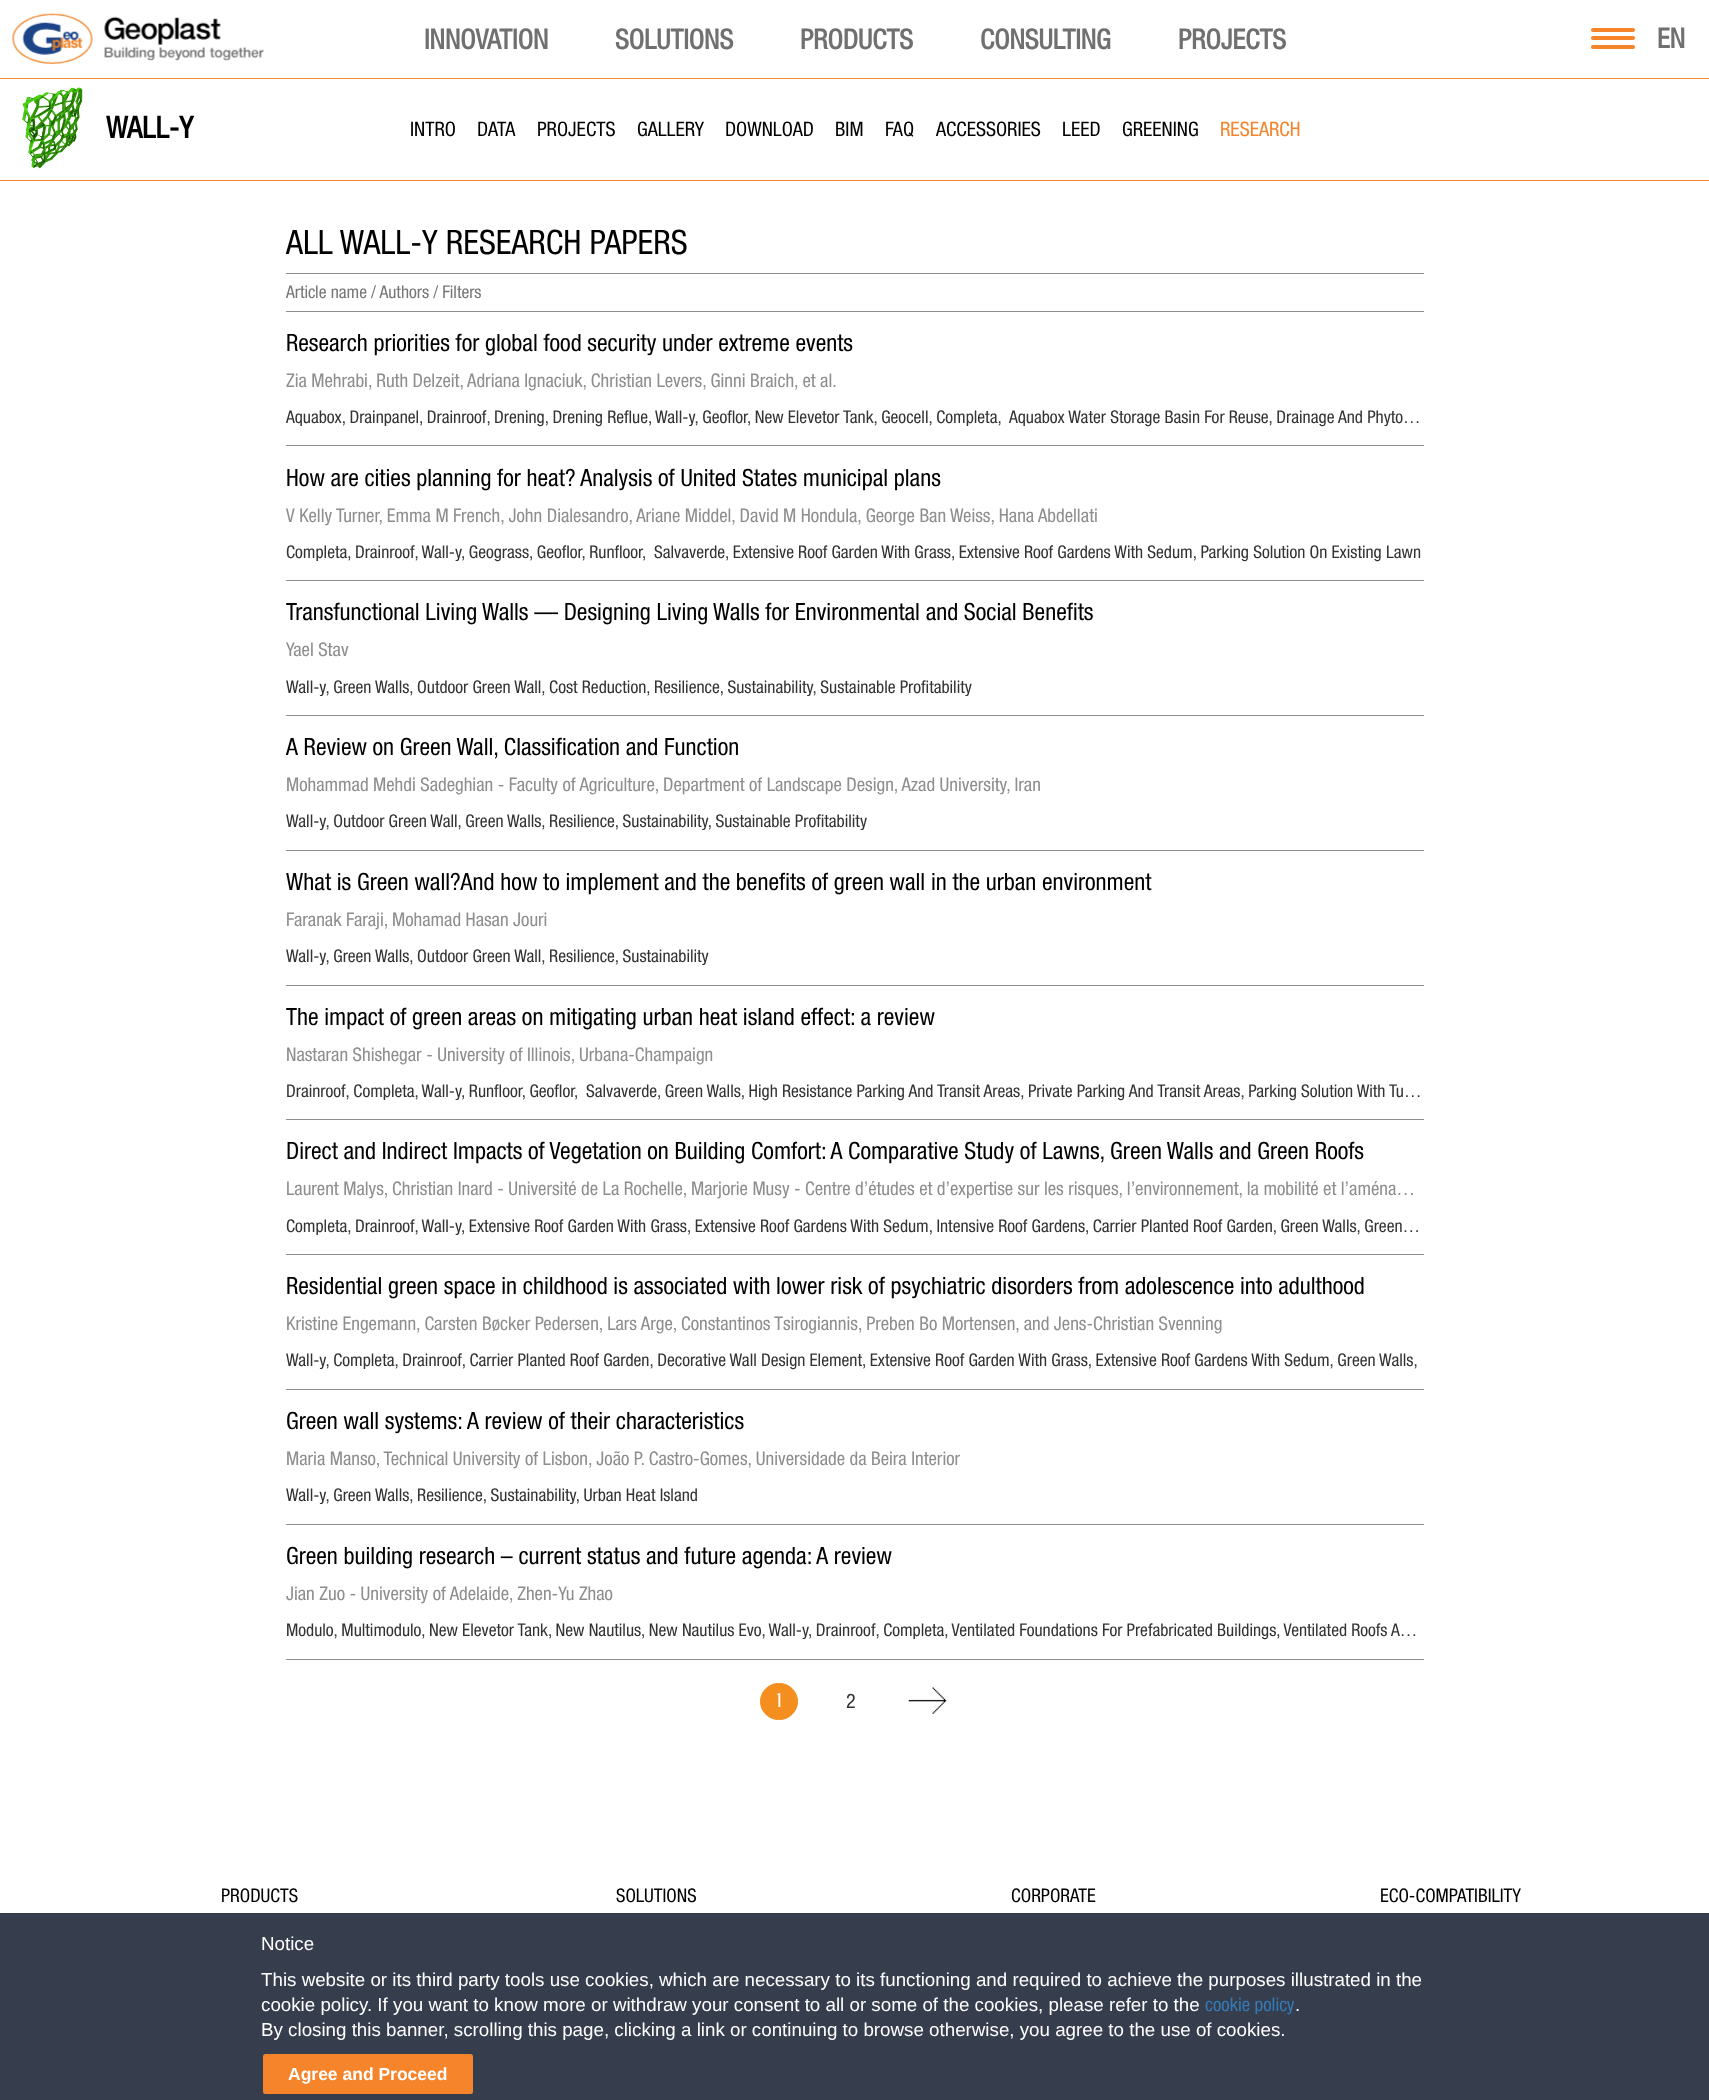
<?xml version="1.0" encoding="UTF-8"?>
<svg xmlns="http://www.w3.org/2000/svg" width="1709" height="2100">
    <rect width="100%" height="100%" fill="#FFFFFF"/>
    <rect x="0" y="78" width="1709" height="1" fill="#F5842B"/>
    <image x="12" y="13" width="252" height="51" href="img_01.png"/>
    <text x="424" y="49" font-family="Helvetica Neue" font-size="27.5" font-weight="700" fill="#707070">INNOVATION</text>
    <text x="615" y="49" font-family="Helvetica Neue" font-size="27.5" font-weight="700" fill="#707070">SOLUTIONS</text>
    <text x="800" y="49" font-family="Helvetica Neue" font-size="27.5" font-weight="700" fill="#707070">PRODUCTS</text>
    <text x="980" y="49" font-family="Helvetica Neue" font-size="27.5" font-weight="700" fill="#707070">CONSULTING</text>
    <text x="1178" y="49" font-family="Helvetica Neue" font-size="27.5" font-weight="700" fill="#707070">PROJECTS</text>
    <rect x="1591" y="36" width="44" height="4" rx="2" fill="#F5842B"/>
    <rect x="1591" y="28" width="44" height="4" rx="2" fill="#F5842B"/>
    <rect x="1591" y="45" width="44" height="4" rx="2" fill="#F5842B"/>
    <text x="1657" y="48" font-family="Helvetica Neue" font-size="27.5" font-weight="700" fill="#707070">EN</text>
    <rect x="0" y="180" width="1709" height="1" fill="#F5842B"/>
    <image x="22" y="87" width="61" height="82" href="img_02.png"/>
    <text x="106" y="138" font-family="Helvetica Neue" font-size="30" font-weight="700" fill="#000000">WALL-Y</text>
    <text x="410" y="136" font-family="Helvetica Neue" font-size="20" fill="#000000">INTRO</text>
    <text x="477" y="136" font-family="Helvetica Neue" font-size="20" fill="#000000">DATA</text>
    <text x="537" y="136" font-family="Helvetica Neue" font-size="20" fill="#000000">PROJECTS</text>
    <text x="637" y="136" font-family="Helvetica Neue" font-size="20" fill="#000000">GALLERY</text>
    <text x="725" y="136" font-family="Helvetica Neue" font-size="20" fill="#000000">DOWNLOAD</text>
    <text x="835" y="136" font-family="Helvetica Neue" font-size="20" fill="#000000">BIM</text>
    <text x="885" y="136" font-family="Helvetica Neue" font-size="20" fill="#000000">FAQ</text>
    <text x="936" y="136" font-family="Helvetica Neue" font-size="20" fill="#000000">ACCESSORIES</text>
    <text x="1062" y="136" font-family="Helvetica Neue" font-size="20" fill="#000000">LEED</text>
    <text x="1122" y="136" font-family="Helvetica Neue" font-size="20" fill="#000000">GREENING</text>
    <text x="1220" y="136" font-family="Helvetica Neue" font-size="20" fill="#F5842B">RESEARCH</text>
    <text x="286" y="254" font-family="Helvetica Neue" font-size="33.75" fill="#000000">ALL WALL-Y RESEARCH PAPERS</text>
    <rect x="286" y="273" width="1138" height="1" fill="#8E8E8E"/>
    <rect x="286" y="311" width="1138" height="1" fill="#8E8E8E"/>
    <text x="286" y="298" font-family="Helvetica Neue" font-size="17.5" fill="#767676">Article name / Authors / Filters</text>
    <rect x="286" y="445" width="1138" height="1" fill="#8E8E8E"/>
    <text x="286" y="351" font-family="Helvetica Neue" font-size="23.75" fill="#000000">Research priorities for global food security under extreme events</text>
    <text x="286" y="387" font-family="Helvetica Neue" font-size="18.75" fill="#8E8E8E">Zia Mehrabi, Ruth Delzeit, Adriana Ignaciuk, Christian Levers, Ginni Braich, et al.</text>
    <text x="286" y="423" font-family="Helvetica Neue" font-size="17.5" fill="#333333">Aquabox, Drainpanel, Drainroof, Drening, Drening Reflue, Wall-y, Geoflor, New Elevetor Tank, Geocell, Completa,</text>
    <text x="1009" y="423" font-family="Helvetica Neue" font-size="17.5" fill="#333333">Aquabox Water Storage Basin For Reuse, Drainage And Phyto…</text>
    <rect x="286" y="580" width="1138" height="1" fill="#8E8E8E"/>
    <text x="286" y="486" font-family="Helvetica Neue" font-size="23.75" fill="#000000">How are cities planning for heat? Analysis of United States municipal plans</text>
    <text x="286" y="522" font-family="Helvetica Neue" font-size="18.75" fill="#8E8E8E">V Kelly Turner, Emma M French, John Dialesandro, Ariane Middel, David M Hondula, George Ban Weiss, Hana Abdellati</text>
    <text x="286" y="558" font-family="Helvetica Neue" font-size="17.5" fill="#333333">Completa, Drainroof, Wall-y, Geograss, Geoflor, Runfloor,</text>
    <text x="654" y="558" font-family="Helvetica Neue" font-size="17.5" fill="#333333">Salvaverde, Extensive Roof Garden With Grass, Extensive Roof Gardens With Sedum, Parking Solution On Existing Lawn</text>
    <rect x="286" y="715" width="1138" height="1" fill="#8E8E8E"/>
    <text x="286" y="620" font-family="Helvetica Neue" font-size="23.75" fill="#000000">Transfunctional Living Walls — Designing Living Walls for Environmental and Social Benefits</text>
    <text x="286" y="656" font-family="Helvetica Neue" font-size="18.75" fill="#8E8E8E">Yael Stav</text>
    <text x="286" y="693" font-family="Helvetica Neue" font-size="17.5" fill="#333333">Wall-y, Green Walls, Outdoor Green Wall, Cost Reduction, Resilience, Sustainability, Sustainable Profitability</text>
    <rect x="286" y="850" width="1138" height="1" fill="#8E8E8E"/>
    <text x="286" y="755" font-family="Helvetica Neue" font-size="23.75" fill="#000000">A Review on Green Wall, Classification and Function</text>
    <text x="286" y="791" font-family="Helvetica Neue" font-size="18.75" fill="#8E8E8E">Mohammad Mehdi Sadeghian - Faculty of Agriculture, Department of Landscape Design, Azad University, Iran</text>
    <text x="286" y="827" font-family="Helvetica Neue" font-size="17.5" fill="#333333">Wall-y, Outdoor Green Wall, Green Walls, Resilience, Sustainability, Sustainable Profitability</text>
    <rect x="286" y="985" width="1138" height="1" fill="#8E8E8E"/>
    <text x="286" y="890" font-family="Helvetica Neue" font-size="23.75" fill="#000000">What is Green wall?And how to implement and the benefits of green wall in the urban environment</text>
    <text x="286" y="926" font-family="Helvetica Neue" font-size="18.75" fill="#8E8E8E">Faranak Faraji, Mohamad Hasan Jouri</text>
    <text x="286" y="962" font-family="Helvetica Neue" font-size="17.5" fill="#333333">Wall-y, Green Walls, Outdoor Green Wall, Resilience, Sustainability</text>
    <rect x="286" y="1119" width="1138" height="1" fill="#8E8E8E"/>
    <text x="286" y="1025" font-family="Helvetica Neue" font-size="23.75" fill="#000000">The impact of green areas on mitigating urban heat island effect: a review</text>
    <text x="286" y="1061" font-family="Helvetica Neue" font-size="18.75" fill="#8E8E8E">Nastaran Shishegar - University of Illinois, Urbana-Champaign</text>
    <text x="286" y="1097" font-family="Helvetica Neue" font-size="17.5" fill="#333333">Drainroof, Completa, Wall-y, Runfloor, Geoflor,</text>
    <text x="586" y="1097" font-family="Helvetica Neue" font-size="17.5" fill="#333333">Salvaverde, Green Walls, High Resistance Parking And Transit Areas, Private Parking And Transit Areas, Parking Solution With Tu…</text>
    <rect x="286" y="1254" width="1138" height="1" fill="#8E8E8E"/>
    <text x="286" y="1159" font-family="Helvetica Neue" font-size="23.75" fill="#000000">Direct and Indirect Impacts of Vegetation on Building Comfort: A Comparative Study of Lawns, Green Walls and Green Roofs</text>
    <text x="286" y="1195" font-family="Helvetica Neue" font-size="18.75" fill="#8E8E8E">Laurent Malys, Christian Inard - Université de La Rochelle, Marjorie Musy - Centre d’études et d’expertise sur les risques, l’environnement, la mobilité et l’aména…</text>
    <text x="286" y="1232" font-family="Helvetica Neue" font-size="17.5" fill="#333333">Completa, Drainroof, Wall-y, Extensive Roof Garden With Grass, Extensive Roof Gardens With Sedum, Intensive Roof Gardens, Carrier Planted Roof Garden, Green Walls, Green…</text>
    <rect x="286" y="1389" width="1138" height="1" fill="#8E8E8E"/>
    <text x="286" y="1294" font-family="Helvetica Neue" font-size="23.75" fill="#000000">Residential green space in childhood is associated with lower risk of psychiatric disorders from adolescence into adulthood</text>
    <text x="286" y="1330" font-family="Helvetica Neue" font-size="18.75" fill="#8E8E8E">Kristine Engemann, Carsten Bøcker Pedersen, Lars Arge, Constantinos Tsirogiannis, Preben Bo Mortensen, and Jens-Christian Svenning</text>
    <text x="286" y="1366" font-family="Helvetica Neue" font-size="17.5" fill="#333333">Wall-y, Completa, Drainroof, Carrier Planted Roof Garden, Decorative Wall Design Element, Extensive Roof Garden With Grass, Extensive Roof Gardens With Sedum, Green Walls,</text>
    <rect x="286" y="1524" width="1138" height="1" fill="#8E8E8E"/>
    <text x="286" y="1429" font-family="Helvetica Neue" font-size="23.75" fill="#000000">Green wall systems: A review of their characteristics</text>
    <text x="286" y="1465" font-family="Helvetica Neue" font-size="18.75" fill="#8E8E8E">Maria Manso, Technical University of Lisbon, João P. Castro-Gomes, Universidade da Beira Interior</text>
    <text x="286" y="1501" font-family="Helvetica Neue" font-size="17.5" fill="#333333">Wall-y, Green Walls, Resilience, Sustainability, Urban Heat Island</text>
    <rect x="286" y="1659" width="1138" height="1" fill="#8E8E8E"/>
    <text x="286" y="1564" font-family="Helvetica Neue" font-size="23.75" fill="#000000">Green building research – current status and future agenda: A review</text>
    <text x="286" y="1600" font-family="Helvetica Neue" font-size="18.75" fill="#8E8E8E">Jian Zuo - University of Adelaide, Zhen-Yu Zhao</text>
    <text x="286" y="1636" font-family="Helvetica Neue" font-size="17.5" fill="#333333">Modulo, Multimodulo, New Elevetor Tank, New Nautilus, New Nautilus Evo, Wall-y, Drainroof, Completa, Ventilated Foundations For Prefabricated Buildings, Ventilated Roofs A…</text>
    <rect x="760.5" y="1683.5" width="37" height="36" rx="18" fill="#F48F1F" stroke="#F48F1F"/>
    <text x="776" y="1707" font-family="Sansation" font-size="20" fill="#FFFFFF">1</text>
    <text x="846" y="1708" font-family="Helvetica Neue" font-size="20" fill="#333333">2</text>
    <image x="908" y="1687" width="39" height="27" href="img_03.png"/>
    <text x="221" y="1902" font-family="Helvetica Neue" font-size="18.75" fill="#000000">PRODUCTS</text>
    <text x="616" y="1902" font-family="Helvetica Neue" font-size="18.75" fill="#000000">SOLUTIONS</text>
    <text x="1011" y="1902" font-family="Helvetica Neue" font-size="18.75" fill="#000000">CORPORATE</text>
    <text x="1380" y="1902" font-family="Helvetica Neue" font-size="18.75" fill="#000000">ECO-COMPATIBILITY</text>
    <rect x="0" y="1913" width="1709" height="187" fill="#363D4D"/>
    <text font-family="Liberation Sans" font-size="18.75" fill="#FFFFFF">
        <tspan x="261" y="1950">Notice</tspan>
        <tspan x="261" y="1986">This website or its third party tools use cookies, which are necessary to its functioning and required to achieve the purposes illustrated in the</tspan>
        <tspan x="261" y="2011">cookie policy. If you want to know more or withdraw your consent to all or some of the cookies, please refer to the</tspan>
    </text>
    <text x="1205" y="2011" font-family="Helvetica Neue" font-size="18.75" fill="#337AB7">cookie policy</text>
    <text x="1295" y="2011" font-family="Liberation Sans" font-size="18.75" fill="#FFFFFF">.</text>
    <text x="261" y="2036" font-family="Liberation Sans" font-size="18.75" fill="#FFFFFF">By closing this banner, scrolling this page, clicking a link or continuing to browse otherwise, you agree to the use of cookies.</text>
    <rect x="263" y="2054" width="210" height="40" rx="2.5" fill="#F5842B"/>
    <text x="288" y="2080" font-family="Liberation Sans" font-size="17.5" font-weight="700" fill="#FFFFFF">Agree and Proceed</text>
</svg>
